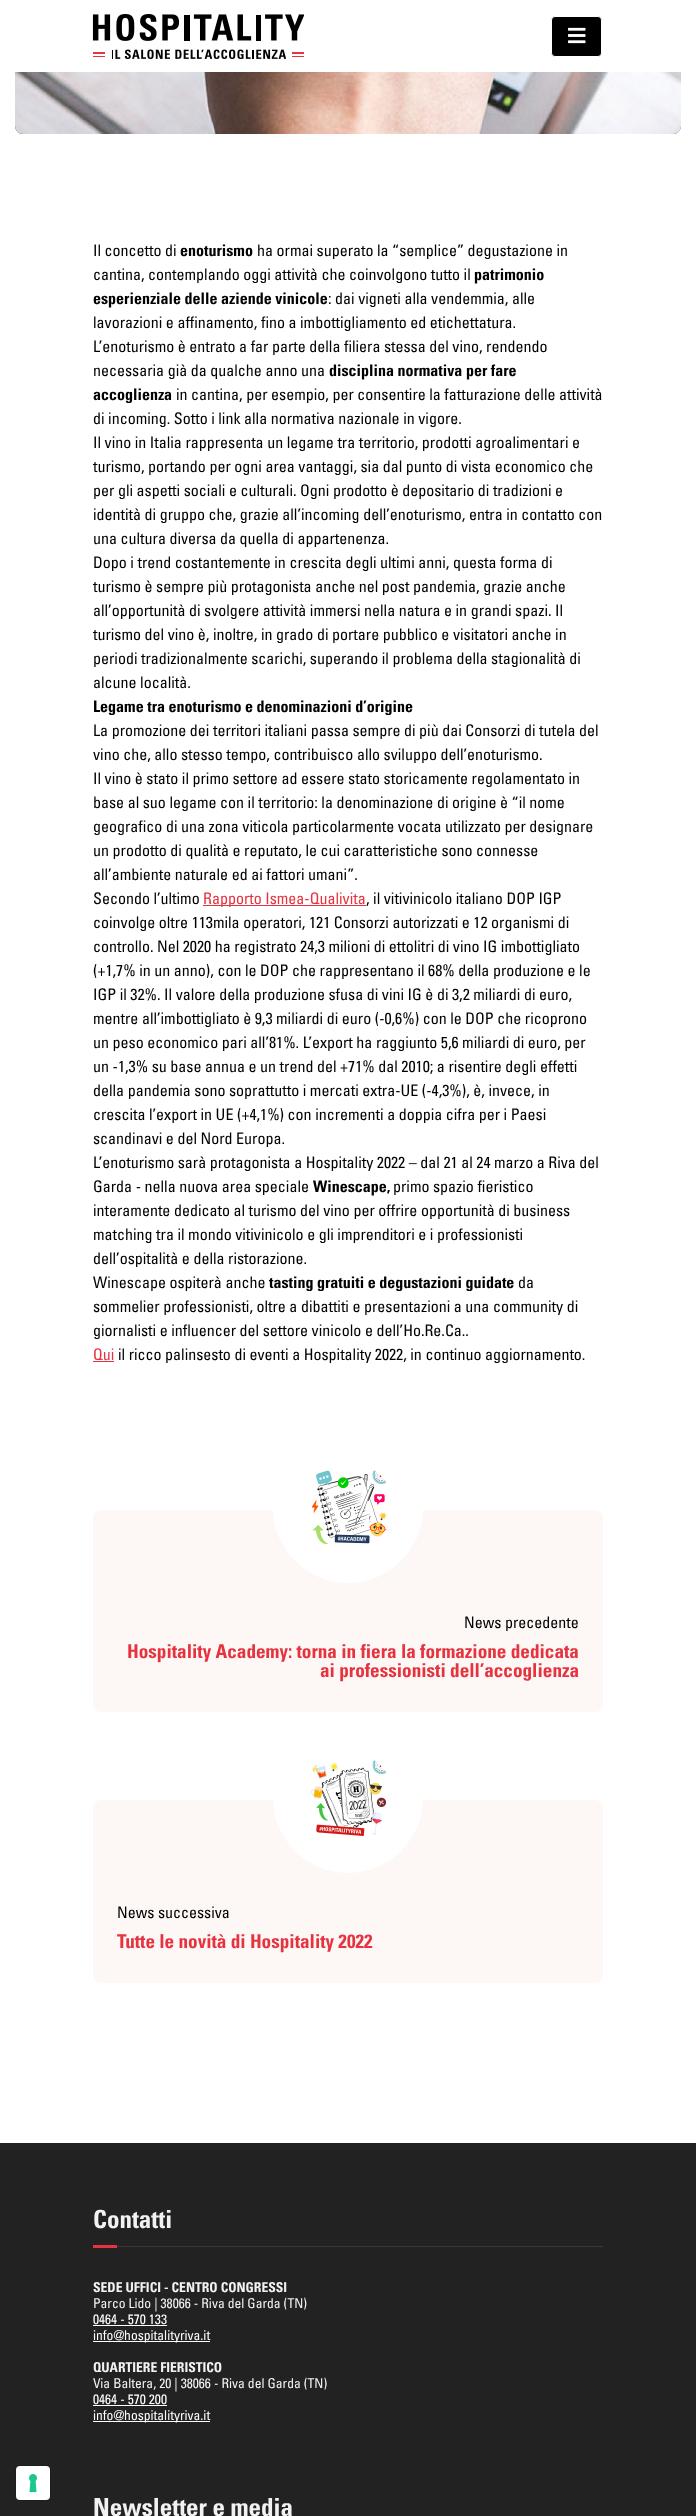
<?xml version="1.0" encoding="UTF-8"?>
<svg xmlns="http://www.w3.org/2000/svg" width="696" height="2516">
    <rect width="100%" height="100%" fill="#FFFFFF"/>
    <rect x="15" y="-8" width="666" height="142" rx="8" fill="#343A40"/>
    <image x="15" y="72" width="666" height="62" href="img_01.png"/>
    <rect x="15" y="0" width="666" height="72" fill="#FFFFFF"/>
    <image x="92" y="14" width="212" height="45" href="img_02.png"/>
    <rect x="551.5" y="16.5" width="50" height="40" rx="3.5" fill="#000000" stroke="#FFFFFF"/>
    <image x="568" y="27" width="18" height="17" href="img_03.png"/>
    <text x="93" y="256" font-family="Univers" font-size="16" font-weight="500" fill="#000000">Il concetto di</text>
    <text x="180" y="256" font-family="Univers" font-size="16" font-weight="700" fill="#000000">enoturismo</text>
    <text x="257" y="256" font-family="Univers" font-size="16" font-weight="500" fill="#000000">ha ormai superato la “semplice” degustazione in</text>
    <text x="93" y="280" font-family="Univers" font-size="16" font-weight="500" fill="#000000">cantina, contemplando oggi attività che coinvolgono tutto il</text>
    <text x="474" y="280" font-family="Univers" font-size="16" font-weight="700" fill="#000000">patrimonio</text>
    <text x="93" y="304" font-family="Univers" font-size="16" font-weight="700" fill="#000000">esperienziale delle aziende vinicole</text>
    <text x="328" y="304" font-family="Univers" font-size="16" font-weight="500" fill="#000000">: dai vigneti alla vendemmia, alle</text>
    <text font-family="Univers" font-size="16" font-weight="500" fill="#000000">
        <tspan x="93" y="328">lavorazioni e affinamento, fino a imbottigliamento ed etichettatura.</tspan>
        <tspan x="93" y="352">L’enoturismo è entrato a far parte della filiera stessa del vino, rendendo</tspan>
        <tspan x="93" y="376">necessaria già da qualche anno una</tspan>
    </text>
    <text x="329" y="376" font-family="Univers" font-size="16" font-weight="700" fill="#000000">disciplina normativa per fare</text>
    <text x="93" y="400" font-family="Univers" font-size="16" font-weight="700" fill="#000000">accoglienza</text>
    <text x="176" y="400" font-family="Univers" font-size="16" font-weight="500" fill="#000000">in cantina, per esempio, per consentire la fatturazione delle attività</text>
    <text font-family="Univers" font-size="16" font-weight="500" fill="#000000">
        <tspan x="93" y="424">di incoming. Sotto i link alla normativa nazionale in vigore.</tspan>
        <tspan x="93" y="448">Il vino in Italia rappresenta un legame tra territorio, prodotti agroalimentari e</tspan>
        <tspan x="93" y="472">turismo, portando per ogni area vantaggi, sia dal punto di vista economico che</tspan>
        <tspan x="93" y="496">per gli aspetti sociali e culturali. Ogni prodotto è depositario di tradizioni e</tspan>
        <tspan x="93" y="520">identità di gruppo che, grazie all’incoming dell’enoturismo, entra in contatto con</tspan>
        <tspan x="93" y="544">una cultura diversa da quella di appartenenza.</tspan>
        <tspan x="93" y="568">Dopo i trend costantemente in crescita degli ultimi anni, questa forma di</tspan>
        <tspan x="93" y="592">turismo è sempre più protagonista anche nel post pandemia, grazie anche</tspan>
        <tspan x="93" y="616">all’opportunità di svolgere attività immersi nella natura e in grandi spazi. Il</tspan>
        <tspan x="93" y="640">turismo del vino è, inoltre, in grado di portare pubblico e visitatori anche in</tspan>
        <tspan x="93" y="664">periodi tradizionalmente scarichi, superando il problema della stagionalità di</tspan>
        <tspan x="93" y="688">alcune località.</tspan>
    </text>
    <text x="93" y="712" font-family="Univers" font-size="16" font-weight="700" fill="#000000">Legame tra enoturismo e denominazioni d’origine</text>
    <text font-family="Univers" font-size="16" font-weight="500" fill="#000000">
        <tspan x="93" y="736">La promozione dei territori italiani passa sempre di più dai Consorzi di tutela del</tspan>
        <tspan x="93" y="760">vino che, allo stesso tempo, contribuisco allo sviluppo dell’enoturismo.</tspan>
        <tspan x="93" y="784">Il vino è stato il primo settore ad essere stato storicamente regolamentato in</tspan>
        <tspan x="93" y="808">base al suo legame con il territorio: la denominazione di origine è “il nome</tspan>
        <tspan x="93" y="832">geografico di una zona viticola particolarmente vocata utilizzato per designare</tspan>
        <tspan x="93" y="856">un prodotto di qualità e reputato, le cui caratteristiche sono connesse</tspan>
        <tspan x="93" y="880">all’ambiente naturale ed ai fattori umani”.</tspan>
        <tspan x="93" y="904">Secondo l’ultimo</tspan>
    </text>
    <rect x="203" y="905" width="163" height="1" fill="#E73340"/>
    <text x="203" y="904" font-family="Univers" font-size="16" font-weight="500" fill="#E73340">Rapporto Ismea-Qualivita</text>
    <text x="366" y="904" font-family="Univers" font-size="16" font-weight="500" fill="#000000">, il vitivinicolo italiano DOP IGP</text>
    <text font-family="Univers" font-size="16" font-weight="500" fill="#000000">
        <tspan x="93" y="928">coinvolge oltre 113mila operatori, 121 Consorzi autorizzati e 12 organismi di</tspan>
        <tspan x="93" y="952">controllo. Nel 2020 ha registrato 24,3 milioni di ettolitri di vino IG imbottigliato</tspan>
        <tspan x="93" y="976">(+1,7% in un anno), con le DOP che rappresentano il 68% della produzione e le</tspan>
        <tspan x="93" y="1000">IGP il 32%. Il valore della produzione sfusa di vini IG è di 3,2 miliardi di euro,</tspan>
        <tspan x="93" y="1024">mentre all’imbottigliato è 9,3 miliardi di euro (-0,6%) con le DOP che ricoprono</tspan>
        <tspan x="93" y="1048">un peso economico pari all’81%. L’export ha raggiunto 5,6 miliardi di euro, per</tspan>
        <tspan x="93" y="1072">un -1,3% su base annua e un trend del +71% dal 2010; a risentire degli effetti</tspan>
        <tspan x="93" y="1096">della pandemia sono soprattutto i mercati extra-UE (-4,3%), è, invece, in</tspan>
        <tspan x="93" y="1120">crescita l’export in UE (+4,1%) con incrementi a doppia cifra per i Paesi</tspan>
        <tspan x="93" y="1144">scandinavi e del Nord Europa.</tspan>
        <tspan x="93" y="1168">L’enoturismo sarà protagonista a Hospitality 2022 – dal 21 al 24 marzo a Riva del</tspan>
        <tspan x="93" y="1192">Garda - nella nuova area speciale</tspan>
    </text>
    <text x="313" y="1192" font-family="Univers" font-size="16" font-weight="700" fill="#000000">Winescape,</text>
    <text x="393" y="1192" font-family="Univers" font-size="16" font-weight="500" fill="#000000">primo spazio fieristico</text>
    <text font-family="Univers" font-size="16" font-weight="500" fill="#000000">
        <tspan x="93" y="1216">interamente dedicato al turismo del vino per offrire opportunità di business</tspan>
        <tspan x="93" y="1240">matching tra il mondo vitivinicolo e gli imprenditori e i professionisti</tspan>
        <tspan x="93" y="1264">dell’ospitalità e della ristorazione.</tspan>
        <tspan x="93" y="1288">Winescape ospiterà anche</tspan>
    </text>
    <text x="269" y="1288" font-family="Univers" font-size="16" font-weight="700" fill="#000000">tasting gratuiti e degustazioni guidate</text>
    <text x="518" y="1288" font-family="Univers" font-size="16" font-weight="500" fill="#000000">da</text>
    <text font-family="Univers" font-size="16" font-weight="500" fill="#000000">
        <tspan x="93" y="1312">sommelier professionisti, oltre a dibattiti e presentazioni a una community di</tspan>
        <tspan x="93" y="1336">giornalisti e influencer del settore vinicolo e dell’Ho.Re.Ca..</tspan>
    </text>
    <text x="93" y="1360" font-family="Univers" font-size="16" font-weight="500" fill="#E73340">Qui</text>
    <rect x="93" y="1361" width="21" height="1" fill="#E73340"/>
    <text x="118" y="1360" font-family="Univers" font-size="16" font-weight="500" fill="#000000">il ricco palinsesto di eventi a Hospitality 2022, in continuo aggiornamento.</text>
    <rect x="93" y="1510" width="510" height="202" rx="8" fill="#FDF8F5"/>
    <circle cx="348" cy="1508" r="75" fill="#FFFFFF"/>
    <image x="311" y="1470" width="76" height="75" href="img_04.png"/>
    <text x="464" y="1628" font-family="Univers" font-size="16" font-weight="500" fill="#000000">News precedente</text>
    <text x="127" y="1658" font-family="Univers" font-size="19.2" font-weight="700" fill="#E73340">Hospitality Academy: torna in fiera la formazione dedicata</text>
    <text x="320" y="1677" font-family="Univers" font-size="19.2" font-weight="700" fill="#E73340">ai professionisti dell’accoglienza</text>
    <rect x="93" y="1800" width="510" height="183" rx="8" fill="#FDF8F5"/>
    <circle cx="348" cy="1798" r="75" fill="#FFFFFF"/>
    <image x="311" y="1760" width="76" height="76" href="img_05.png"/>
    <text x="117" y="1918" font-family="Univers" font-size="16" font-weight="500" fill="#000000">News successiva</text>
    <text x="117" y="1948" font-family="Univers" font-size="19.2" font-weight="700" fill="#E73340">Tutte le novità di Hospitality 2022</text>
    <rect x="0" y="2143" width="696" height="373" fill="#222222"/>
    <rect x="15.5" y="2465.5" width="35" height="35" rx="4.5" fill="none" stroke="#1D1D1D"/>
    <rect x="16" y="2466" width="34" height="34" rx="4" fill="#FFFFFF"/>
    <image x="29" y="2474" width="8" height="18" href="img_06.png"/>
    <rect x="117" y="2246" width="486" height="1" fill="#383838"/>
    <text x="93" y="2228" font-family="Univers" font-size="25" font-weight="700" fill="#F2F2F2">Contatti</text>
    <rect x="93" y="2245" width="24" height="3" fill="#E73340"/>
    <text x="93" y="2292" font-family="Univers" font-size="13.6" font-weight="700" fill="#F2F2F2">SEDE UFFICI - CENTRO CONGRESSI</text>
    <text x="93" y="2308" font-family="Univers" font-size="13.6" font-weight="500" fill="#F2F2F2">Parco Lido | 38066 - Riva del Garda (TN)</text>
    <text x="93" y="2324" font-family="Univers" font-size="13.6" font-weight="500" fill="#FFFFFF">0464 - 570 133</text>
    <rect x="93" y="2325" width="74" height="1" fill="#FFFFFF"/>
    <rect x="93" y="2341" width="117" height="1" fill="#FFFFFF"/>
    <text x="93" y="2340" font-family="Univers" font-size="13.6" font-weight="500" fill="#FFFFFF">info@hospitalityriva.it</text>
    <text x="93" y="2372" font-family="Univers" font-size="13.6" font-weight="700" fill="#F2F2F2">QUARTIERE FIERISTICO</text>
    <text x="93" y="2388" font-family="Univers" font-size="13.6" font-weight="500" fill="#F2F2F2">Via Baltera, 20 | 38066 - Riva del Garda (TN)</text>
    <text x="93" y="2404" font-family="Univers" font-size="13.6" font-weight="500" fill="#FFFFFF">0464 - 570 200</text>
    <rect x="93" y="2405" width="74" height="1" fill="#FFFFFF"/>
    <rect x="93" y="2421" width="117" height="1" fill="#FFFFFF"/>
    <text x="93" y="2420" font-family="Univers" font-size="13.6" font-weight="500" fill="#FFFFFF">info@hospitalityriva.it</text>
    <text x="93" y="2516" font-family="Univers" font-size="25" font-weight="700" fill="#F2F2F2">Newsletter e media</text>
</svg>
